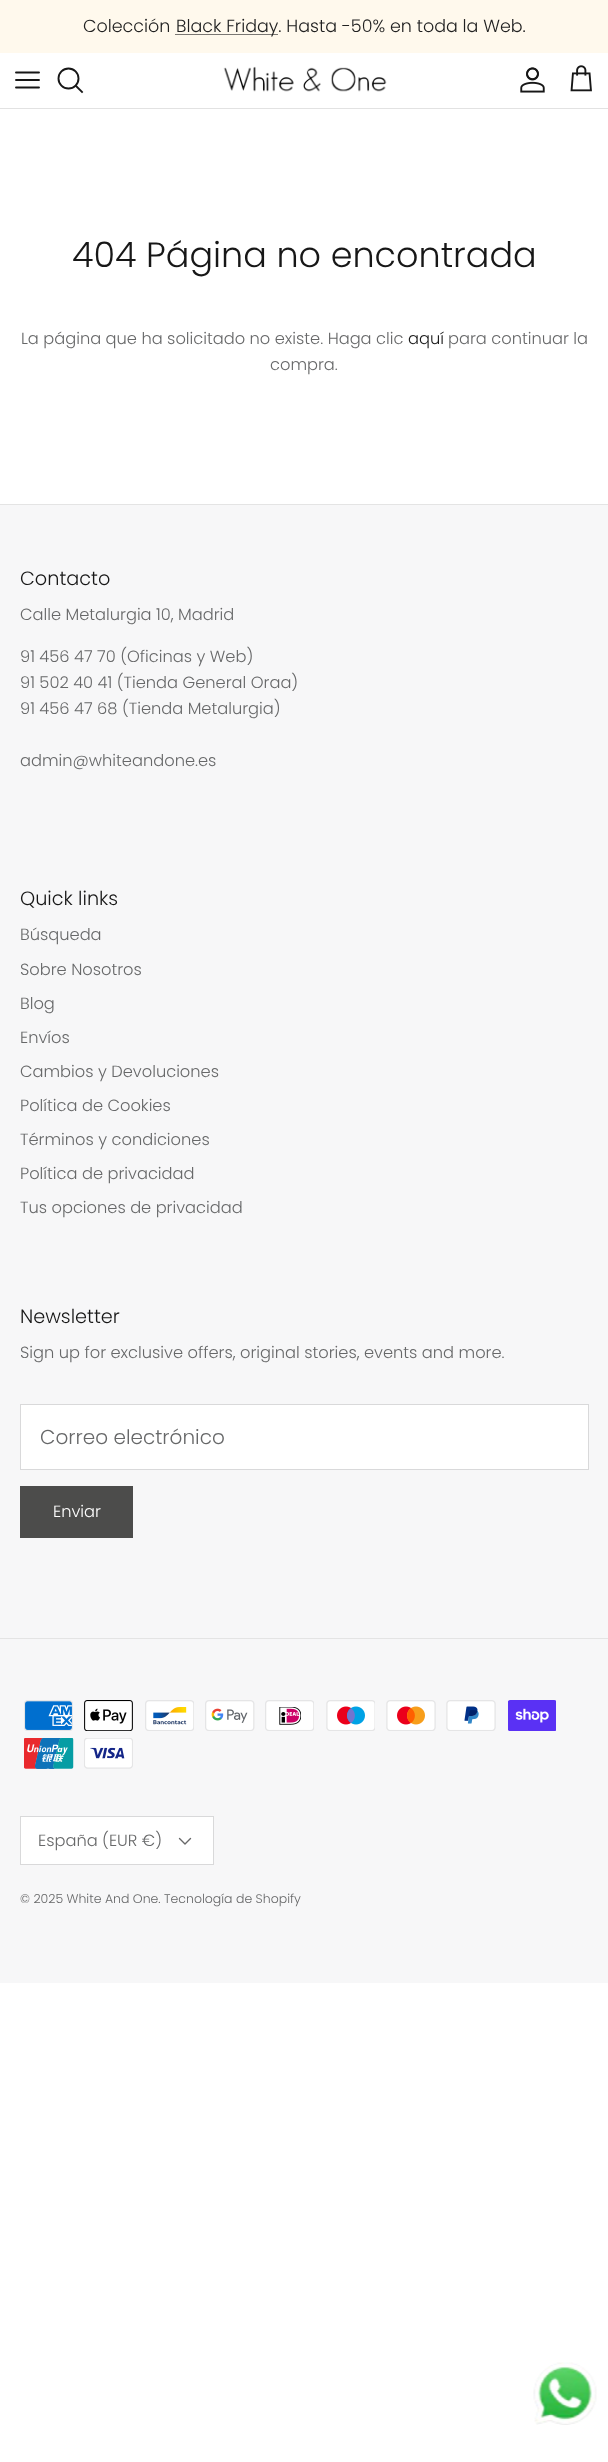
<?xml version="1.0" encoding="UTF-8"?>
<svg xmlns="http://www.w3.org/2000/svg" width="608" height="2462">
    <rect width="100%" height="100%" fill="#FFFFFF"/>
    <rect x="0" y="0" width="608" height="53" fill="#FFF9ED"/>
    <text x="83" y="32" font-family="Poppins" font-size="17.5" font-weight="300" fill="#212121">Colección</text>
    <rect x="175" y="34" width="103" height="1" fill="#7A7773"/>
    <text x="176" y="32" font-family="Poppins" font-size="17.5" font-weight="300" fill="#212121">Black Friday. Hasta -50% en toda la Web.</text>
    <rect x="0" y="108" width="608" height="1" fill="#E2E2E2"/>
    <path d="M 16 80 H 39 M 16 72.5 H 39 M 16 87.5 H 39" fill="none" stroke="#171717" stroke-width="1.9" stroke-linecap="round" stroke-linejoin="round"/>
    <circle cx="68.5" cy="78.5" r="10" fill="none" stroke="#171717" stroke-width="1.9"/>
    <path d="M 76 86 L 82 92" fill="none" stroke="#171717" stroke-width="1.9" stroke-linecap="square"/>
    <image x="223" y="66" width="164" height="26" href="img_01.png"/>
    <image x="520" y="67" width="25" height="26" href="img_02.png"/>
    <image x="570" y="65" width="22" height="27" href="img_03.png"/>
    <text x="72" y="267" font-family="Poppins" font-size="35" font-weight="300" fill="#171717">404 Página no encontrada</text>
    <text x="21" y="344" font-family="Poppins" font-size="16.25" font-weight="300" fill="#676869">La página que ha solicitado no existe. Haga clic</text>
    <text x="408" y="344" font-family="Poppins" font-size="16.25" font-weight="300" fill="#171717">aquí</text>
    <text x="448" y="344" font-family="Poppins" font-size="16.25" font-weight="300" fill="#676869">para continuar la</text>
    <text x="270" y="370" font-family="Poppins" font-size="16.25" font-weight="300" fill="#676869">compra.</text>
    <rect x="0" y="505" width="608" height="1478" fill="#F7F7F8"/>
    <rect x="0" y="504" width="608" height="1" fill="#E4E4E4"/>
    <text x="20" y="585" font-family="Poppins" font-size="19.25" font-weight="300" fill="#171717">Contacto</text>
    <text x="20" y="620" font-family="Poppins" font-size="16.25" font-weight="300" fill="#676869">Calle Metalurgia 10, Madrid</text>
    <text font-family="Poppins" font-size="16.25" font-weight="300" fill="#676869">
        <tspan x="20" y="662">91 456 47 70 (Oficinas y Web)</tspan>
        <tspan x="20" y="688">91 502 40 41 (Tienda General Oraa)</tspan>
        <tspan x="20" y="714">91 456 47 68 (Tienda Metalurgia)</tspan>
    </text>
    <text x="20" y="766" font-family="Poppins" font-size="16.25" font-weight="300" fill="#676869">admin@whiteandone.es</text>
    <text x="20" y="905" font-family="Poppins" font-size="19.25" font-weight="300" fill="#171717">Quick links</text>
    <text x="20" y="940" font-family="Poppins" font-size="16.25" font-weight="300" fill="#676869">Búsqueda</text>
    <text x="20" y="975" font-family="Poppins" font-size="16.25" font-weight="300" fill="#676869">Sobre Nosotros</text>
    <text x="20" y="1009" font-family="Poppins" font-size="16.25" font-weight="300" fill="#676869">Blog</text>
    <text x="20" y="1043" font-family="Poppins" font-size="16.25" font-weight="300" fill="#676869">Envíos</text>
    <text x="20" y="1077" font-family="Poppins" font-size="16.25" font-weight="300" fill="#676869">Cambios y Devoluciones</text>
    <text x="20" y="1111" font-family="Poppins" font-size="16.25" font-weight="300" fill="#676869">Política de Cookies</text>
    <text x="20" y="1145" font-family="Poppins" font-size="16.25" font-weight="300" fill="#676869">Términos y condiciones</text>
    <text x="20" y="1179" font-family="Poppins" font-size="16.25" font-weight="300" fill="#676869">Política de privacidad</text>
    <text x="20" y="1213" font-family="Poppins" font-size="16.25" font-weight="300" fill="#676869">Tus opciones de privacidad</text>
    <text x="20" y="1323" font-family="Poppins" font-size="19.25" font-weight="300" fill="#171717">Newsletter</text>
    <text x="20" y="1358" font-family="Poppins" font-size="16.25" font-weight="300" fill="#676869">Sign up for exclusive offers, original stories, events and more.</text>
    <rect x="20.5" y="1404.5" width="568" height="65" fill="#FFFFFF" stroke="#D9D9DA"/>
    <text x="40" y="1444" font-family="Poppins" font-size="20" font-weight="300" fill="#676869">Correo electrónico</text>
    <rect x="20" y="1486" width="113" height="52" fill="#4C4C4B"/>
    <text x="53" y="1517" font-family="Poppins" font-size="16.25" font-weight="300" fill="#FFFFFF">Enviar</text>
    <rect x="0" y="1638" width="608" height="1" fill="#E4E4E4"/>
    <image x="24" y="1700" width="49" height="31" href="img_04.png"/>
    <image x="84" y="1700" width="49" height="31" href="img_05.png"/>
    <image x="145" y="1700" width="49" height="31" href="img_06.png"/>
    <image x="205" y="1700" width="50" height="31" href="img_07.png"/>
    <image x="265" y="1700" width="49" height="31" href="img_08.png"/>
    <image x="326" y="1700" width="49" height="31" href="img_09.png"/>
    <image x="386" y="1700" width="50" height="31" href="img_10.png"/>
    <image x="446" y="1700" width="50" height="31" href="img_11.png"/>
    <image x="508" y="1700" width="48" height="31" href="img_12.png"/>
    <image x="24" y="1738" width="50" height="31" href="img_13.png"/>
    <image x="84" y="1738" width="49" height="31" href="img_14.png"/>
    <rect x="20.5" y="1816.5" width="193" height="48" fill="#FFFFFF" stroke="#D9D9DA"/>
    <text x="38" y="1846" font-family="Poppins" font-size="16.25" font-weight="300" fill="#676869">España (EUR €)</text>
    <path d="M 179.5 1838.5 L 185 1844 L 190.5 1838.5" fill="none" stroke="#676869" stroke-width="1.4" stroke-linecap="round" stroke-linejoin="round"/>
    <text x="20" y="1903" font-family="Poppins" font-size="12.5" font-weight="300" fill="#676869">© 2025 White And One. Tecnología de Shopify</text>
    <image x="533" y="2362" width="64" height="63" href="img_15.png"/>
</svg>
